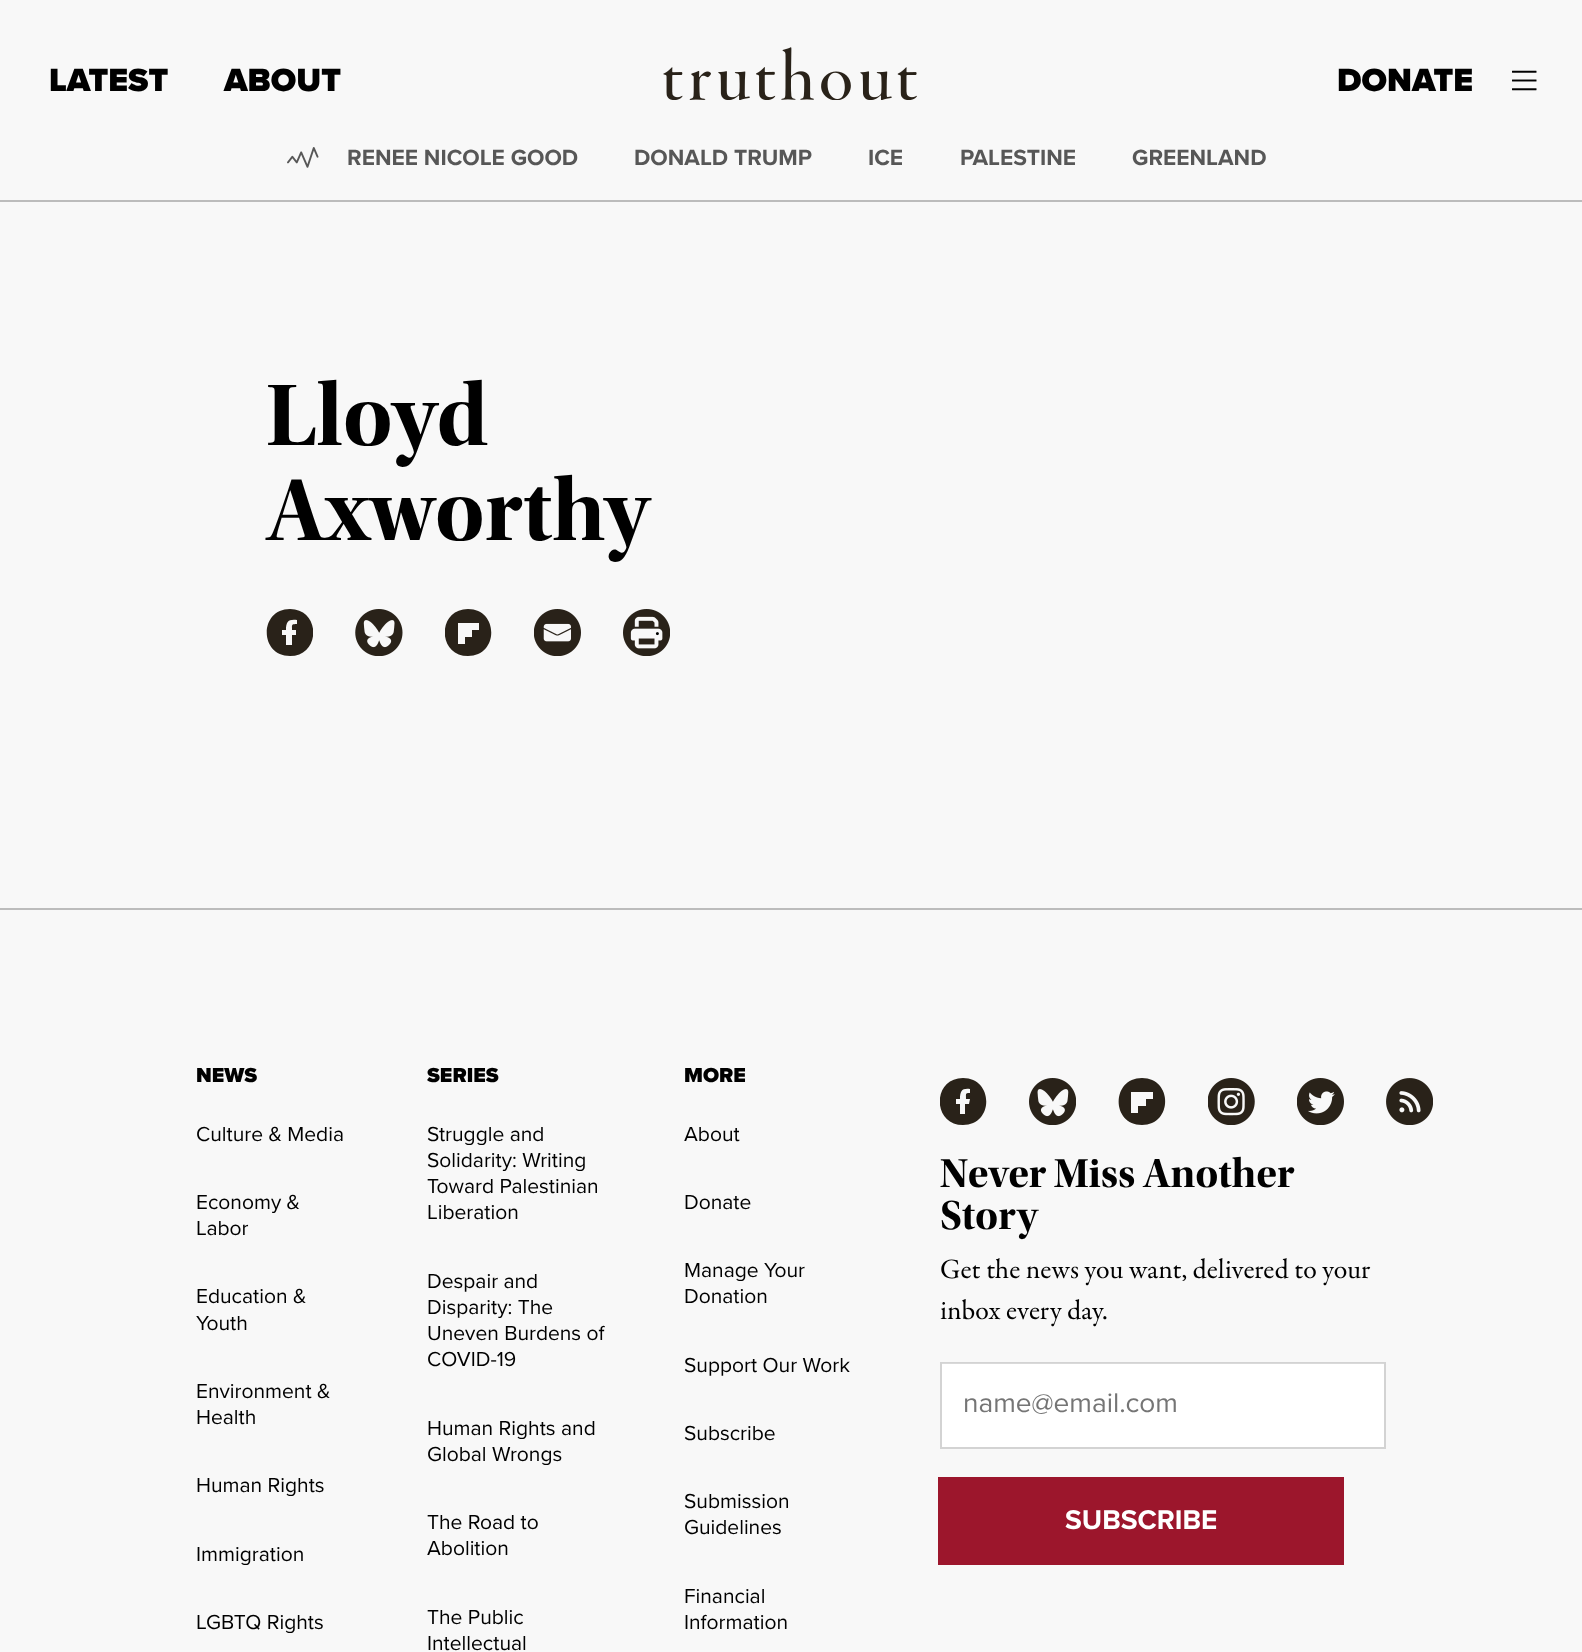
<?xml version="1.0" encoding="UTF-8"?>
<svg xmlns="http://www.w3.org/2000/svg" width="1582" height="1652">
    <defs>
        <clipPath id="clip1"><rect x="266" y="609" width="47" height="47"/></clipPath>
        <clipPath id="clip2"><rect x="445" y="609" width="47" height="47"/></clipPath>
        <clipPath id="clip3"><rect x="940" y="1078" width="47" height="47"/></clipPath>
    </defs>
    <rect width="100%" height="100%" fill="#F8F8F8"/>
    <text x="49" y="91" font-family="Proxima Nova" font-size="33.25" font-weight="900" fill="#000000">LATEST</text>
    <text x="224" y="91" font-family="Proxima Nova" font-size="33.25" font-weight="900" fill="#000000">ABOUT</text>
    <image x="663" y="47" width="254" height="53" href="img_01.png"/>
    <text x="1337" y="91" font-family="Proxima Nova" font-size="33.25" font-weight="900" fill="#000000">DONATE</text>
    <image x="1512" y="70" width="25" height="21" href="img_02.png"/>
    <rect x="0" y="200" width="1582" height="2" fill="#BCBCBC"/>
    <image x="287" y="147" width="32" height="21" href="img_03.png"/>
    <text x="347" y="165" font-family="Proxima Nova" font-size="22.75" font-weight="700" fill="#575757">RENEE NICOLE GOOD</text>
    <text x="634" y="165" font-family="Proxima Nova" font-size="22.75" font-weight="700" fill="#575757">DONALD TRUMP</text>
    <text x="868" y="165" font-family="Proxima Nova" font-size="22.75" font-weight="700" fill="#575757">ICE</text>
    <text x="960" y="165" font-family="Proxima Nova" font-size="22.75" font-weight="700" fill="#575757">PALESTINE</text>
    <text x="1132" y="165" font-family="Proxima Nova" font-size="22.75" font-weight="700" fill="#575757">GREENLAND</text>
    <rect x="0" y="908" width="1582" height="2" fill="#BCBCBC"/>
    <text font-family="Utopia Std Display" font-size="91" font-weight="700" fill="#000000">
        <tspan x="266" y="445">Lloyd</tspan>
        <tspan x="266" y="540">Axworthy</tspan>
    </text>
    <g clip-path="url(#clip1)">
        <path d="M 290 609 C 259 609 259 656 290 656 C 321 656 321 609 290 609 Z M 286 645 V 635 H 282 V 630 H 286 C 286 622 288 619 297 620 V 624 C 291 624 292 625 292 630 H 296 V 635 H 292 V 645" fill="#292219"/>
    </g>
    <image x="355" y="609" width="48" height="47" href="img_04.png"/>
    <g clip-path="url(#clip2)">
        <path d="M 468 609 C 437 609 437 656 468 656 C 499 656 499 609 468 609 Z M 479 630 H 472 V 637 H 465 V 644 H 458 V 623 H 479 Z" fill="#292219"/>
    </g>
    <image x="534" y="609" width="47" height="47" href="img_05.png"/>
    <image x="623" y="609" width="47" height="47" href="img_06.png"/>
    <text x="196" y="1082" font-family="Proxima Nova" font-size="21" font-weight="900" fill="#000000">NEWS</text>
    <text x="196" y="1141" font-family="Proxima Nova" font-size="21" fill="#000000">Culture &amp; Media</text>
    <text font-family="Proxima Nova" font-size="21" fill="#000000">
        <tspan x="196" y="1209">Economy &amp;</tspan>
        <tspan x="196" y="1235">Labor</tspan>
    </text>
    <text font-family="Proxima Nova" font-size="21" fill="#000000">
        <tspan x="196" y="1303">Education &amp;</tspan>
        <tspan x="196" y="1330">Youth</tspan>
    </text>
    <text font-family="Proxima Nova" font-size="21" fill="#000000">
        <tspan x="196" y="1398">Environment &amp;</tspan>
        <tspan x="196" y="1424">Health</tspan>
    </text>
    <text x="196" y="1492" font-family="Proxima Nova" font-size="21" fill="#000000">Human Rights</text>
    <text x="196" y="1561" font-family="Proxima Nova" font-size="21" fill="#000000">Immigration</text>
    <text x="196" y="1629" font-family="Proxima Nova" font-size="21" fill="#000000">LGBTQ Rights</text>
    <text x="427" y="1082" font-family="Proxima Nova" font-size="21" font-weight="900" fill="#000000">SERIES</text>
    <text font-family="Proxima Nova" font-size="21" fill="#000000">
        <tspan x="427" y="1141">Struggle and</tspan>
        <tspan x="427" y="1167">Solidarity: Writing</tspan>
        <tspan x="427" y="1193">Toward Palestinian</tspan>
        <tspan x="427" y="1219">Liberation</tspan>
    </text>
    <text font-family="Proxima Nova" font-size="21" fill="#000000">
        <tspan x="427" y="1288">Despair and</tspan>
        <tspan x="427" y="1314">Disparity: The</tspan>
        <tspan x="427" y="1340">Uneven Burdens of</tspan>
        <tspan x="427" y="1366">COVID-19</tspan>
    </text>
    <text font-family="Proxima Nova" font-size="21" fill="#000000">
        <tspan x="427" y="1435">Human Rights and</tspan>
        <tspan x="427" y="1461">Global Wrongs</tspan>
    </text>
    <text font-family="Proxima Nova" font-size="21" fill="#000000">
        <tspan x="427" y="1529">The Road to</tspan>
        <tspan x="427" y="1555">Abolition</tspan>
    </text>
    <text font-family="Proxima Nova" font-size="21" fill="#000000">
        <tspan x="427" y="1624">The Public</tspan>
        <tspan x="427" y="1650">Intellectual</tspan>
    </text>
    <text x="684" y="1082" font-family="Proxima Nova" font-size="21" font-weight="900" fill="#000000">MORE</text>
    <text x="684" y="1141" font-family="Proxima Nova" font-size="21" fill="#000000">About</text>
    <text x="684" y="1209" font-family="Proxima Nova" font-size="21" fill="#000000">Donate</text>
    <text font-family="Proxima Nova" font-size="21" fill="#000000">
        <tspan x="684" y="1277">Manage Your</tspan>
        <tspan x="684" y="1303">Donation</tspan>
    </text>
    <text x="684" y="1372" font-family="Proxima Nova" font-size="21" fill="#000000">Support Our Work</text>
    <text x="684" y="1440" font-family="Proxima Nova" font-size="21" fill="#000000">Subscribe</text>
    <text font-family="Proxima Nova" font-size="21" fill="#000000">
        <tspan x="684" y="1508">Submission</tspan>
        <tspan x="684" y="1534">Guidelines</tspan>
    </text>
    <text font-family="Proxima Nova" font-size="21" fill="#000000">
        <tspan x="684" y="1603">Financial</tspan>
        <tspan x="684" y="1629">Information</tspan>
    </text>
    <g clip-path="url(#clip3)">
        <path d="M 963 1078 C 932 1078 932 1125 963 1125 C 994 1125 994 1078 963 1078 Z M 960 1114 V 1104 H 956 V 1099 H 960 C 960 1091 962 1088 970 1089 V 1093 C 965 1093 966 1094 966 1099 H 970 L 969 1104 H 965 V 1114" fill="#292219"/>
    </g>
    <image x="1029" y="1078" width="47" height="47" href="img_07.png"/>
    <path d="M 1142 1078 C 1111 1078 1111 1125 1142 1125 C 1173 1125 1173 1078 1142 1078 Z M 1153 1099 H 1146 V 1106 H 1138 V 1113 H 1131 V 1092 H 1153 Z" fill="#292219"/>
    <image x="1208" y="1078" width="47" height="47" href="img_08.png"/>
    <image x="1297" y="1078" width="47" height="47" href="img_09.png"/>
    <image x="1386" y="1078" width="47" height="47" href="img_10.png"/>
    <text font-family="Utopia Std Display" font-size="42" font-weight="700" fill="#000000">
        <tspan x="940" y="1187">Never Miss Another</tspan>
        <tspan x="940" y="1229">Story</tspan>
    </text>
    <text font-family="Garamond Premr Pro" font-size="28" fill="#000000">
        <tspan x="940" y="1278">Get the news you want, delivered to your</tspan>
        <tspan x="940" y="1319">inbox every day.</tspan>
    </text>
    <rect x="942" y="1363" width="442" height="84" fill="#FFFFFF"/>
    <rect x="941" y="1363" width="444" height="85" fill="none" stroke="#000000" stroke-opacity="0.15" stroke-width="2"/>
    <text x="963" y="1412" font-family="Proxima Nova" font-size="28" fill="#757575">name@email.com</text>
    <rect x="938" y="1477" width="406" height="88" fill="#9C162C"/>
    <text x="1065" y="1529" font-family="Proxima Nova" font-size="28" font-weight="700" fill="#FFFFFF">SUBSCRIBE</text>
</svg>
